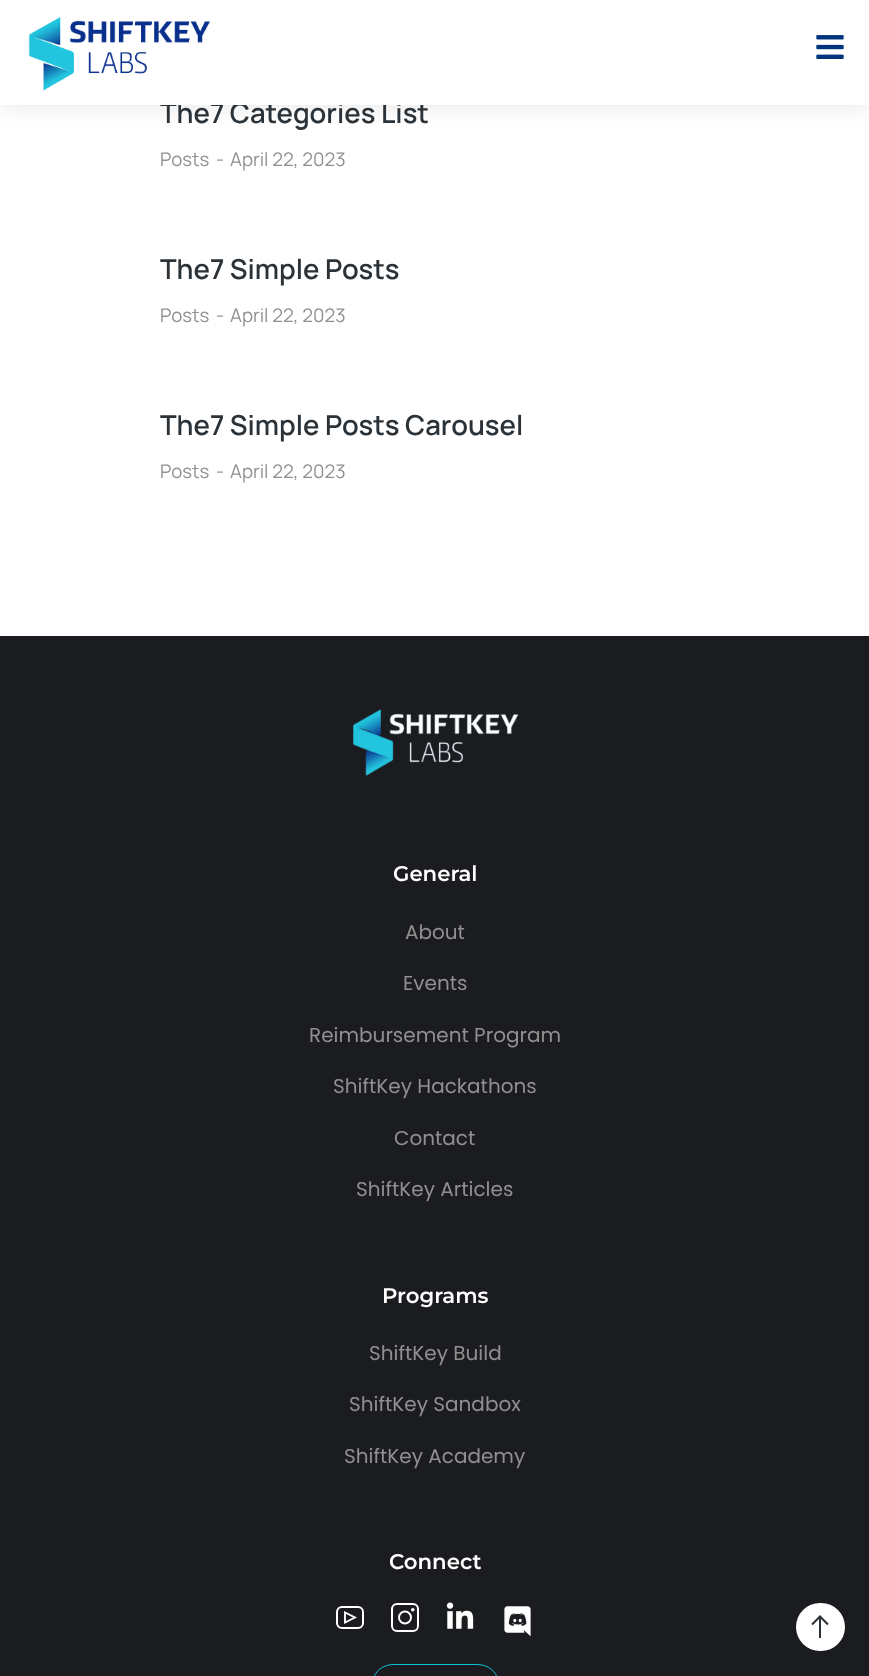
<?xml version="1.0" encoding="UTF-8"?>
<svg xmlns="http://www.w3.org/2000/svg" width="869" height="1676">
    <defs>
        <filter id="blur1" x="-50%" y="-200%" width="200%" height="500%"><feGaussianBlur stdDeviation="12.5"/></filter>
    </defs>
    <rect width="100%" height="100%" fill="#FFFFFF"/>
    <rect x="0" y="0" width="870" height="105" fill="#000000" fill-opacity="0.1" filter="url(#blur1)"/>
    <text x="160" y="123" font-family="Manrope" font-size="27.5" font-weight="600" fill="#2C3338">The7 Categories List</text>
    <rect x="0" y="0" width="869" height="105" fill="#FFFFFF"/>
    <image x="28" y="17" width="182" height="74" href="img_01.png"/>
    <image x="816" y="35" width="28" height="24" href="img_02.png"/>
    <text x="160" y="166" font-family="Manrope" font-size="18.75" fill="#909090">Posts</text>
    <text x="216" y="166" font-family="Manrope" font-size="18.75" fill="#909090">-</text>
    <text x="230" y="166" font-family="Manrope" font-size="18.75" fill="#909090">April 22, 2023</text>
    <text x="160" y="279" font-family="Manrope" font-size="27.5" font-weight="600" fill="#2C3338">The7 Simple Posts</text>
    <text x="160" y="322" font-family="Manrope" font-size="18.75" fill="#909090">Posts</text>
    <text x="216" y="322" font-family="Manrope" font-size="18.75" fill="#909090">-</text>
    <text x="230" y="322" font-family="Manrope" font-size="18.75" fill="#909090">April 22, 2023</text>
    <text x="160" y="435" font-family="Manrope" font-size="27.5" font-weight="600" fill="#2C3338">The7 Simple Posts Carousel</text>
    <text x="160" y="478" font-family="Manrope" font-size="18.75" fill="#909090">Posts</text>
    <text x="216" y="478" font-family="Manrope" font-size="18.75" fill="#909090">-</text>
    <text x="230" y="478" font-family="Manrope" font-size="18.75" fill="#909090">April 22, 2023</text>
    <rect x="0" y="636" width="869" height="1040" fill="#1A1C20"/>
    <image x="352" y="709" width="167" height="67" href="img_03.png"/>
    <text x="393" y="881" font-family="Montserrat" font-size="21.25" font-weight="600" fill="#FFFFFF">General</text>
    <text x="405" y="939" font-family="Poppins" font-size="20" fill="#909090">About</text>
    <text x="403" y="990" font-family="Poppins" font-size="20" fill="#909090">Events</text>
    <text x="309" y="1042" font-family="Poppins" font-size="20" fill="#909090">Reimbursement Program</text>
    <text x="333" y="1093" font-family="Poppins" font-size="20" fill="#909090">ShiftKey Hackathons</text>
    <text x="394" y="1145" font-family="Poppins" font-size="20" fill="#909090">Contact</text>
    <text x="356" y="1196" font-family="Poppins" font-size="20" fill="#909090">ShiftKey Articles</text>
    <text x="382" y="1303" font-family="Montserrat" font-size="21.25" font-weight="600" fill="#FFFFFF">Programs</text>
    <text x="369" y="1360" font-family="Poppins" font-size="20" fill="#909090">ShiftKey Build</text>
    <text x="349" y="1411" font-family="Poppins" font-size="20" fill="#909090">ShiftKey Sandbox</text>
    <text x="344" y="1463" font-family="Poppins" font-size="20" fill="#909090">ShiftKey Academy</text>
    <text x="389" y="1569" font-family="Montserrat" font-size="21.25" font-weight="600" fill="#FFFFFF">Connect</text>
    <rect x="337" y="1607" width="26" height="21" rx="5" fill="none" stroke="#FFFFFF" stroke-width="2"/>
    <path d="M 355 1617.5 L 345 1622.5 V 1612.5 Z" fill="none" stroke="#FFFFFF" stroke-width="1.9"/>
    <rect x="392" y="1604" width="26" height="27" rx="5" fill="none" stroke="#FFFFFF" stroke-width="2"/>
    <circle cx="405" cy="1617.5" r="6" fill="none" stroke="#FFFFFF" stroke-width="1.9"/>
    <circle cx="412.8" cy="1609.8" r="1.8" fill="#FFFFFF"/>
    <image x="446" y="1602" width="28" height="27" href="img_04.png"/>
    <image x="504" y="1606" width="27" height="31" href="img_05.png"/>
    <rect x="373.5" y="1664.5" width="124" height="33" rx="20.5" fill="none" stroke="#0BC4D9"/>
    <rect x="796" y="1603" width="49" height="48" rx="24" fill="#FFFFFF"/>
    <rect x="819" y="1617" width="2" height="21" fill="#2C3338"/>
    <path d="M 812 1624.5 L 820 1616.5 L 828 1624.5" fill="none" stroke="#2C3338" stroke-width="2.1"/>
</svg>
